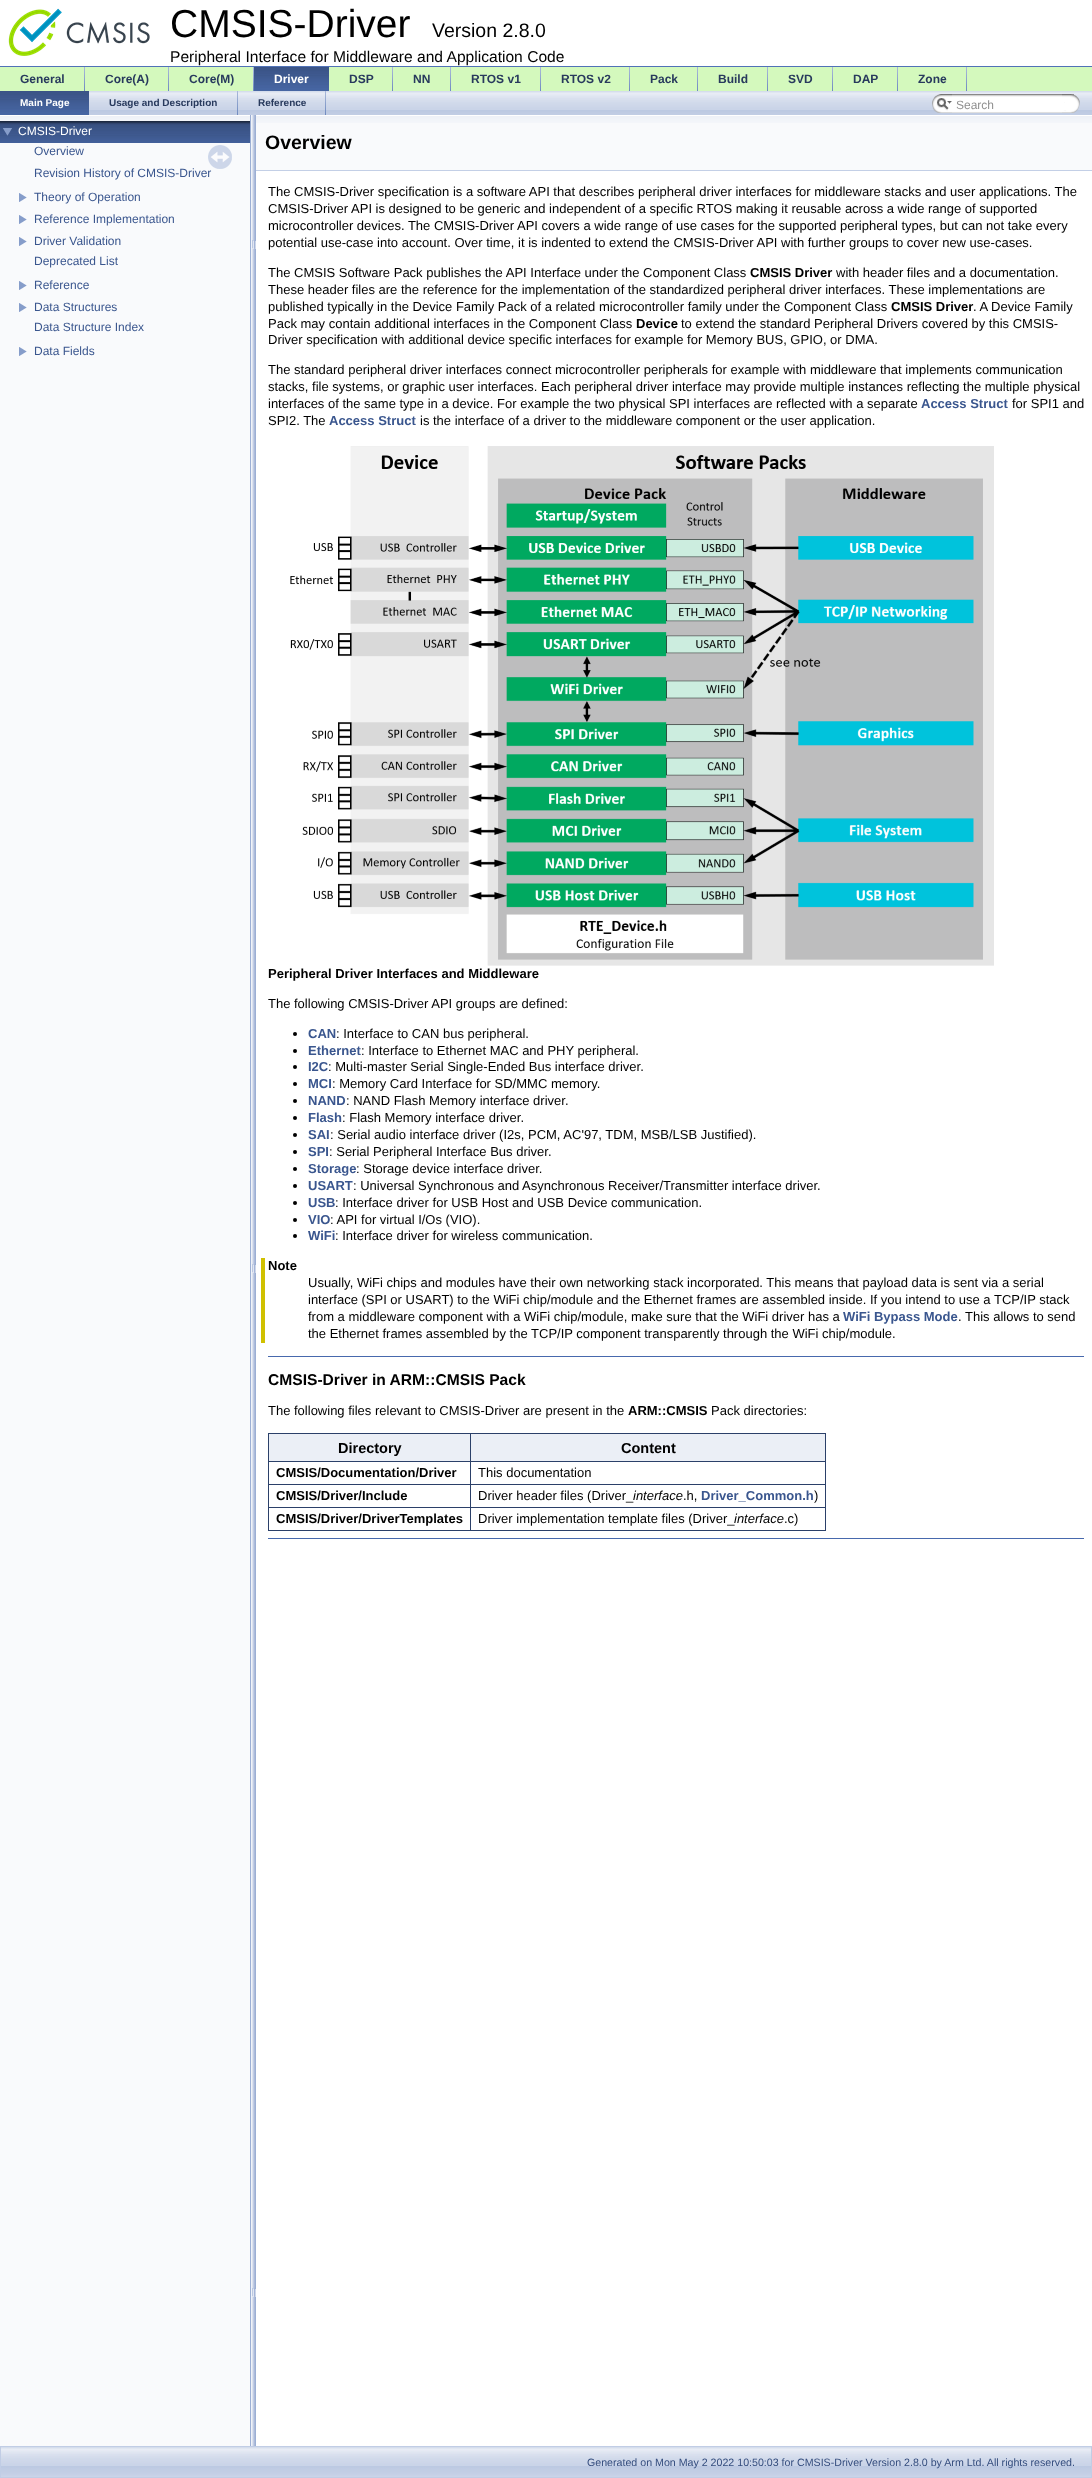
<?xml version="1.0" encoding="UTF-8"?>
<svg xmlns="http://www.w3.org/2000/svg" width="1092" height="2478">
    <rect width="100%" height="100%" fill="#FFFFFF"/>
    <rect x="0" y="66" width="1092" height="1" fill="#5072B7"/>
    <image x="8" y="8" width="142" height="48" href="img_01.png"/>
    <text x="170" y="37" font-family="Liberation Sans" font-size="39" fill="#000000">CMSIS-Driver</text>
    <text x="432" y="37" font-family="Liberation Sans" font-size="19.5" fill="#000000">Version 2.8.0</text>
    <text x="170" y="62" font-family="Liberation Sans" font-size="15.6" fill="#000000">Peripheral Interface for Middleware and Application Code</text>
    <rect x="0" y="67" width="1092" height="24" fill="#D4F9BD"/>
    <image x="84" y="67" width="1" height="24" href="img_02.png"/>
    <text x="20" y="83" font-family="Liberation Sans" font-size="12" font-weight="700" fill="#283A5D">General</text>
    <image x="168" y="67" width="1" height="24" href="img_02.png"/>
    <text x="105" y="83" font-family="Liberation Sans" font-size="12" font-weight="700" fill="#283A5D">Core(A)</text>
    <image x="253" y="67" width="1" height="24" href="img_02.png"/>
    <text x="189" y="83" font-family="Liberation Sans" font-size="12" font-weight="700" fill="#283A5D">Core(M)</text>
    <image x="254" y="67" width="75" height="24" href="img_03.png"/>
    <text x="274" y="83" font-family="Liberation Sans" font-size="12" font-weight="700" fill="#FFFFFF">Driver</text>
    <image x="392" y="67" width="1" height="24" href="img_02.png"/>
    <text x="349" y="83" font-family="Liberation Sans" font-size="12" font-weight="700" fill="#283A5D">DSP</text>
    <image x="450" y="67" width="1" height="24" href="img_02.png"/>
    <text x="413" y="83" font-family="Liberation Sans" font-size="12" font-weight="700" fill="#283A5D">NN</text>
    <image x="540" y="67" width="1" height="24" href="img_02.png"/>
    <text x="471" y="83" font-family="Liberation Sans" font-size="12" font-weight="700" fill="#283A5D">RTOS v1</text>
    <image x="629" y="67" width="1" height="24" href="img_02.png"/>
    <text x="561" y="83" font-family="Liberation Sans" font-size="12" font-weight="700" fill="#283A5D">RTOS v2</text>
    <image x="697" y="67" width="1" height="24" href="img_02.png"/>
    <text x="650" y="83" font-family="Liberation Sans" font-size="12" font-weight="700" fill="#283A5D">Pack</text>
    <image x="767" y="67" width="1" height="24" href="img_02.png"/>
    <text x="718" y="83" font-family="Liberation Sans" font-size="12" font-weight="700" fill="#283A5D">Build</text>
    <image x="832" y="67" width="1" height="24" href="img_02.png"/>
    <text x="788" y="83" font-family="Liberation Sans" font-size="12" font-weight="700" fill="#283A5D">SVD</text>
    <image x="897" y="67" width="1" height="24" href="img_02.png"/>
    <text x="853" y="83" font-family="Liberation Sans" font-size="12" font-weight="700" fill="#283A5D">DAP</text>
    <image x="966" y="67" width="1" height="24" href="img_02.png"/>
    <text x="918" y="83" font-family="Liberation Sans" font-size="12" font-weight="700" fill="#283A5D">Zone</text>
    <image x="89" y="91" width="1003" height="24" href="img_04.png"/>
    <image x="0" y="91" width="89" height="24" href="img_05.png"/>
    <text x="20" y="106" font-family="Liberation Sans" font-size="10" font-weight="700" fill="#FFFFFF">Main Page</text>
    <image x="237" y="91" width="1" height="24" href="img_02.png"/>
    <text x="109" y="106" font-family="Liberation Sans" font-size="10" font-weight="700" fill="#283A5D">Usage and Description</text>
    <image x="325" y="91" width="1" height="24" href="img_02.png"/>
    <text x="258" y="106" font-family="Liberation Sans" font-size="10" font-weight="700" fill="#283A5D">Reference</text>
    <image x="932" y="94" width="20" height="19" href="img_06.png"/>
    <image x="937" y="98" width="15" height="12" href="img_07.png"/>
    <image x="952" y="94" width="122" height="19" href="img_08.png"/>
    <text x="956" y="109" font-family="Liberation Sans" font-size="12" fill="#909090">Search</text>
    <image x="1062" y="94" width="18" height="19" href="img_09.png"/>
    <rect x="0" y="143" width="250" height="2303" fill="#F9FAFC"/>
    <image x="0" y="115" width="250" height="6" href="img_10.png"/>
    <image x="0" y="121" width="250" height="22" href="img_11.png"/>
    <image x="3" y="128" width="9" height="8" href="img_12.png"/>
    <text x="18" y="135" font-family="Liberation Sans" font-size="12" fill="#FFFFFF">CMSIS-Driver</text>
    <text font-family="Liberation Sans" font-size="12" fill="#3A568E">
        <tspan x="34" y="155">Overview</tspan>
        <tspan x="34" y="177">Revision History of CMSIS-Driver</tspan>
    </text>
    <image x="19" y="193" width="8" height="9" href="img_13.png"/>
    <text x="34" y="201" font-family="Liberation Sans" font-size="12" fill="#3A568E">Theory of Operation</text>
    <image x="19" y="215" width="8" height="9" href="img_13.png"/>
    <text x="34" y="223" font-family="Liberation Sans" font-size="12" fill="#3A568E">Reference Implementation</text>
    <image x="19" y="237" width="8" height="9" href="img_13.png"/>
    <text font-family="Liberation Sans" font-size="12" fill="#3A568E">
        <tspan x="34" y="245">Driver Validation</tspan>
        <tspan x="34" y="265">Deprecated List</tspan>
    </text>
    <image x="19" y="281" width="8" height="9" href="img_13.png"/>
    <text x="34" y="289" font-family="Liberation Sans" font-size="12" fill="#3A568E">Reference</text>
    <image x="19" y="303" width="8" height="9" href="img_13.png"/>
    <text font-family="Liberation Sans" font-size="12" fill="#3A568E">
        <tspan x="34" y="311">Data Structures</tspan>
        <tspan x="34" y="331">Data Structure Index</tspan>
    </text>
    <image x="19" y="347" width="8" height="9" href="img_13.png"/>
    <text x="34" y="355" font-family="Liberation Sans" font-size="12" fill="#3A568E">Data Fields</text>
    <image x="208" y="145" width="24" height="24" href="img_14.png"/>
    <image x="250" y="115" width="6" height="2331" href="img_15.png"/>
    <rect x="256" y="123" width="836" height="47" fill="#F9FAFC"/>
    <image x="256" y="115" width="836" height="8" href="img_16.png"/>
    <rect x="256" y="170" width="836" height="1" fill="#C3CFE6"/>
    <text x="265" y="149" font-family="Liberation Sans" font-size="19.5" font-weight="700" fill="#000000">Overview</text>
    <text font-family="Liberation Sans" font-size="13" fill="#000000">
        <tspan x="268" y="196">The CMSIS-Driver specification is a software API that describes peripheral driver interfaces for middleware stacks and user applications. The</tspan>
        <tspan x="268" y="213">CMSIS-Driver API is designed to be generic and independent of a specific RTOS making it reusable across a wide range of supported</tspan>
        <tspan x="268" y="230">microcontroller devices. The CMSIS-Driver API covers a wide range of use cases for the supported peripheral types, but can not take every</tspan>
        <tspan x="268" y="247">potential use-case into account. Over time, it is indented to extend the CMSIS-Driver API with further groups to cover new use-cases.</tspan>
    </text>
    <text x="268" y="277" font-family="Liberation Sans" font-size="13" fill="#000000">The CMSIS Software Pack publishes the API Interface under the Component Class</text>
    <text x="750" y="277" font-family="Liberation Sans" font-size="13" font-weight="700" fill="#000000">CMSIS Driver</text>
    <text x="836" y="277" font-family="Liberation Sans" font-size="13" fill="#000000">with header files and a documentation.</text>
    <text font-family="Liberation Sans" font-size="13" fill="#000000">
        <tspan x="268" y="294">These header files are the reference for the implementation of the standardized peripheral driver interfaces. These implementations are</tspan>
        <tspan x="268" y="311">published typically in the Device Family Pack of a related microcontroller family under the Component Class</tspan>
    </text>
    <text x="891" y="311" font-family="Liberation Sans" font-size="13" font-weight="700" fill="#000000">CMSIS Driver</text>
    <text x="973" y="311" font-family="Liberation Sans" font-size="13" fill="#000000">. A Device Family</text>
    <text x="268" y="328" font-family="Liberation Sans" font-size="13" fill="#000000">Pack may contain additional interfaces in the Component Class</text>
    <text x="636" y="328" font-family="Liberation Sans" font-size="13" font-weight="700" fill="#000000">Device</text>
    <text x="681" y="328" font-family="Liberation Sans" font-size="13" fill="#000000">to extend the standard Peripheral Drivers covered by this CMSIS-</text>
    <text x="268" y="344" font-family="Liberation Sans" font-size="13" fill="#000000">Driver specification with additional device specific interfaces for example for Memory BUS, GPIO, or DMA.</text>
    <text font-family="Liberation Sans" font-size="13" fill="#000000">
        <tspan x="268" y="374">The standard peripheral driver interfaces connect microcontroller peripherals for example with middleware that implements communication</tspan>
        <tspan x="268" y="391">stacks, file systems, or graphic user interfaces. Each peripheral driver interface may provide multiple instances reflecting the multiple physical</tspan>
        <tspan x="268" y="408">interfaces of the same type in a device. For example the two physical SPI interfaces are reflected with a separate</tspan>
    </text>
    <text x="921" y="408" font-family="Liberation Sans" font-size="13" font-weight="700" fill="#3A568E">Access Struct</text>
    <text x="1012" y="408" font-family="Liberation Sans" font-size="13" fill="#000000">for SPI1 and</text>
    <text x="268" y="425" font-family="Liberation Sans" font-size="13" fill="#000000">SPI2. The</text>
    <text x="329" y="425" font-family="Liberation Sans" font-size="13" font-weight="700" fill="#3A568E">Access Struct</text>
    <text x="420" y="425" font-family="Liberation Sans" font-size="13" fill="#000000">is the interface of a driver to the middleware component or the user application.</text>
    <image x="290" y="446" width="704" height="520" href="img_17.png"/>
    <text x="268" y="978" font-family="Liberation Sans" font-size="13" font-weight="700" fill="#000000">Peripheral Driver Interfaces and Middleware</text>
    <text x="268" y="1008" font-family="Liberation Sans" font-size="13" fill="#000000">The following CMSIS-Driver API groups are defined:</text>
    <circle cx="295" cy="1034" r="2" fill="#000000"/>
    <text x="308" y="1038" font-family="Liberation Sans" font-size="13" font-weight="700" fill="#3A568E">CAN</text>
    <text x="336" y="1038" font-family="Liberation Sans" font-size="13" fill="#000000">: Interface to CAN bus peripheral.</text>
    <circle cx="295" cy="1051" r="2" fill="#000000"/>
    <text x="308" y="1055" font-family="Liberation Sans" font-size="13" font-weight="700" fill="#3A568E">Ethernet</text>
    <text x="361" y="1055" font-family="Liberation Sans" font-size="13" fill="#000000">: Interface to Ethernet MAC and PHY peripheral.</text>
    <circle cx="295" cy="1067" r="2" fill="#000000"/>
    <text x="308" y="1071" font-family="Liberation Sans" font-size="13" font-weight="700" fill="#3A568E">I2C</text>
    <text x="328" y="1071" font-family="Liberation Sans" font-size="13" fill="#000000">: Multi-master Serial Single-Ended Bus interface driver.</text>
    <circle cx="295" cy="1084" r="2" fill="#000000"/>
    <text x="308" y="1088" font-family="Liberation Sans" font-size="13" font-weight="700" fill="#3A568E">MCI</text>
    <text x="332" y="1088" font-family="Liberation Sans" font-size="13" fill="#000000">: Memory Card Interface for SD/MMC memory.</text>
    <circle cx="295" cy="1101" r="2" fill="#000000"/>
    <text x="308" y="1105" font-family="Liberation Sans" font-size="13" font-weight="700" fill="#3A568E">NAND</text>
    <text x="346" y="1105" font-family="Liberation Sans" font-size="13" fill="#000000">: NAND Flash Memory interface driver.</text>
    <circle cx="295" cy="1118" r="2" fill="#000000"/>
    <text x="308" y="1122" font-family="Liberation Sans" font-size="13" font-weight="700" fill="#3A568E">Flash</text>
    <text x="342" y="1122" font-family="Liberation Sans" font-size="13" fill="#000000">: Flash Memory interface driver.</text>
    <circle cx="295" cy="1135" r="2" fill="#000000"/>
    <text x="308" y="1139" font-family="Liberation Sans" font-size="13" font-weight="700" fill="#3A568E">SAI</text>
    <text x="330" y="1139" font-family="Liberation Sans" font-size="13" fill="#000000">: Serial audio interface driver (I2s, PCM, AC'97, TDM, MSB/LSB Justified).</text>
    <circle cx="295" cy="1152" r="2" fill="#000000"/>
    <text x="308" y="1156" font-family="Liberation Sans" font-size="13" font-weight="700" fill="#3A568E">SPI</text>
    <text x="329" y="1156" font-family="Liberation Sans" font-size="13" fill="#000000">: Serial Peripheral Interface Bus driver.</text>
    <circle cx="295" cy="1169" r="2" fill="#000000"/>
    <text x="308" y="1173" font-family="Liberation Sans" font-size="13" font-weight="700" fill="#3A568E">Storage</text>
    <text x="356" y="1173" font-family="Liberation Sans" font-size="13" fill="#000000">: Storage device interface driver.</text>
    <circle cx="295" cy="1186" r="2" fill="#000000"/>
    <text x="308" y="1190" font-family="Liberation Sans" font-size="13" font-weight="700" fill="#3A568E">USART</text>
    <text x="353" y="1190" font-family="Liberation Sans" font-size="13" fill="#000000">: Universal Synchronous and Asynchronous Receiver/Transmitter interface driver.</text>
    <circle cx="295" cy="1203" r="2" fill="#000000"/>
    <text x="308" y="1207" font-family="Liberation Sans" font-size="13" font-weight="700" fill="#3A568E">USB</text>
    <text x="335" y="1207" font-family="Liberation Sans" font-size="13" fill="#000000">: Interface driver for USB Host and USB Device communication.</text>
    <circle cx="295" cy="1220" r="2" fill="#000000"/>
    <text x="308" y="1224" font-family="Liberation Sans" font-size="13" font-weight="700" fill="#3A568E">VIO</text>
    <text x="330" y="1224" font-family="Liberation Sans" font-size="13" fill="#000000">: API for virtual I/Os (VIO).</text>
    <circle cx="295" cy="1236" r="2" fill="#000000"/>
    <text x="308" y="1240" font-family="Liberation Sans" font-size="13" font-weight="700" fill="#3A568E">WiFi</text>
    <text x="335" y="1240" font-family="Liberation Sans" font-size="13" fill="#000000">: Interface driver for wireless communication.</text>
    <rect x="261" y="1258" width="4" height="85" fill="#D0C000"/>
    <text x="268" y="1270" font-family="Liberation Sans" font-size="13" font-weight="700" fill="#000000">Note</text>
    <text font-family="Liberation Sans" font-size="13" fill="#000000">
        <tspan x="308" y="1287">Usually, WiFi chips and modules have their own networking stack incorporated. This means that payload data is sent via a serial</tspan>
        <tspan x="308" y="1304">interface (SPI or USART) to the WiFi chip/module and the Ethernet frames are assembled inside. If you intend to use a TCP/IP stack</tspan>
        <tspan x="308" y="1321">from a middleware component with a WiFi chip/module, make sure that the WiFi driver has a</tspan>
    </text>
    <text x="843" y="1321" font-family="Liberation Sans" font-size="13" font-weight="700" fill="#3A568E">WiFi Bypass Mode</text>
    <text x="958" y="1321" font-family="Liberation Sans" font-size="13" fill="#000000">. This allows to send</text>
    <text x="308" y="1338" font-family="Liberation Sans" font-size="13" fill="#000000">the Ethernet frames assembled by the TCP/IP component transparently through the WiFi chip/module.</text>
    <rect x="268" y="1356" width="816" height="1" fill="#4769AD"/>
    <text x="268" y="1385" font-family="Liberation Sans" font-size="15.6" font-weight="700" fill="#000000">CMSIS-Driver in ARM::CMSIS Pack</text>
    <text x="268" y="1415" font-family="Liberation Sans" font-size="13" fill="#000000">The following files relevant to CMSIS-Driver are present in the</text>
    <text x="628" y="1415" font-family="Liberation Sans" font-size="13" font-weight="700" fill="#000000">ARM::CMSIS</text>
    <text x="711" y="1415" font-family="Liberation Sans" font-size="13" fill="#000000">Pack directories:</text>
    <rect x="269" y="1434" width="201" height="27" fill="#EBEFF6"/>
    <rect x="470" y="1433" width="356" height="1" fill="#2B4069"/>
    <rect x="470" y="1461" width="356" height="1" fill="#2B4069"/>
    <rect x="470" y="1484" width="356" height="1" fill="#2B4069"/>
    <rect x="470" y="1507" width="356" height="1" fill="#2B4069"/>
    <rect x="825" y="1507" width="1" height="24" fill="#2B4069"/>
    <rect x="470" y="1530" width="356" height="1" fill="#2B4069"/>
    <rect x="470" y="1507" width="1" height="24" fill="#2B4069"/>
    <rect x="268" y="1507" width="203" height="1" fill="#2B4069"/>
    <rect x="470" y="1484" width="1" height="24" fill="#2B4069"/>
    <rect x="268" y="1484" width="203" height="1" fill="#2B4069"/>
    <rect x="470" y="1461" width="1" height="24" fill="#2B4069"/>
    <rect x="268" y="1461" width="203" height="1" fill="#2B4069"/>
    <rect x="470" y="1433" width="1" height="29" fill="#2B4069"/>
    <rect x="268" y="1433" width="203" height="1" fill="#2B4069"/>
    <rect x="268" y="1530" width="203" height="1" fill="#2B4069"/>
    <rect x="268" y="1507" width="1" height="24" fill="#2B4069"/>
    <rect x="268" y="1484" width="1" height="24" fill="#2B4069"/>
    <rect x="268" y="1461" width="1" height="24" fill="#2B4069"/>
    <rect x="268" y="1433" width="1" height="29" fill="#2B4069"/>
    <text x="338" y="1453" font-family="Liberation Sans" font-size="14.5" font-weight="700" fill="#000000">Directory</text>
    <rect x="471" y="1434" width="354" height="27" fill="#EBEFF6"/>
    <rect x="825" y="1484" width="1" height="24" fill="#2B4069"/>
    <rect x="825" y="1461" width="1" height="24" fill="#2B4069"/>
    <rect x="825" y="1433" width="1" height="29" fill="#2B4069"/>
    <text x="621" y="1453" font-family="Liberation Sans" font-size="14.5" font-weight="700" fill="#000000">Content</text>
    <text x="276" y="1477" font-family="Liberation Sans" font-size="13" font-weight="700" fill="#000000">CMSIS/Documentation/Driver</text>
    <text x="478" y="1477" font-family="Liberation Sans" font-size="13" fill="#000000">This documentation</text>
    <text x="276" y="1500" font-family="Liberation Sans" font-size="13" font-weight="700" fill="#000000">CMSIS/Driver/Include</text>
    <text x="478" y="1500" font-family="Liberation Sans" font-size="13" fill="#000000">Driver header files (Driver_</text>
    <text x="633" y="1500" font-family="Liberation Sans" font-size="13" font-style="italic" fill="#000000">interface</text>
    <text x="683" y="1500" font-family="Liberation Sans" font-size="13" fill="#000000">.h,</text>
    <text x="701" y="1500" font-family="Liberation Sans" font-size="13" font-weight="700" fill="#3A568E">Driver_Common.h</text>
    <text x="814" y="1500" font-family="Liberation Sans" font-size="13" fill="#000000">)</text>
    <text x="276" y="1523" font-family="Liberation Sans" font-size="13" font-weight="700" fill="#000000">CMSIS/Driver/DriverTemplates</text>
    <text x="478" y="1523" font-family="Liberation Sans" font-size="13" fill="#000000">Driver implementation template files (Driver_</text>
    <text x="734" y="1523" font-family="Liberation Sans" font-size="13" font-style="italic" fill="#000000">interface</text>
    <text x="784" y="1523" font-family="Liberation Sans" font-size="13" fill="#000000">.c)</text>
    <rect x="268" y="1538" width="816" height="1" fill="#4769AD"/>
    <image x="1" y="2447" width="1090" height="30" href="img_18.png"/>
    <rect x="0.5" y="2446.5" width="1091" height="31" fill="none" stroke="#C1CDE5"/>
    <text x="587" y="2466" font-family="Liberation Sans" font-size="10.65" fill="#344D7E">Generated on Mon May 2 2022 10:50:03 for CMSIS-Driver Version 2.8.0 by Arm Ltd. All rights reserved.</text>
</svg>
